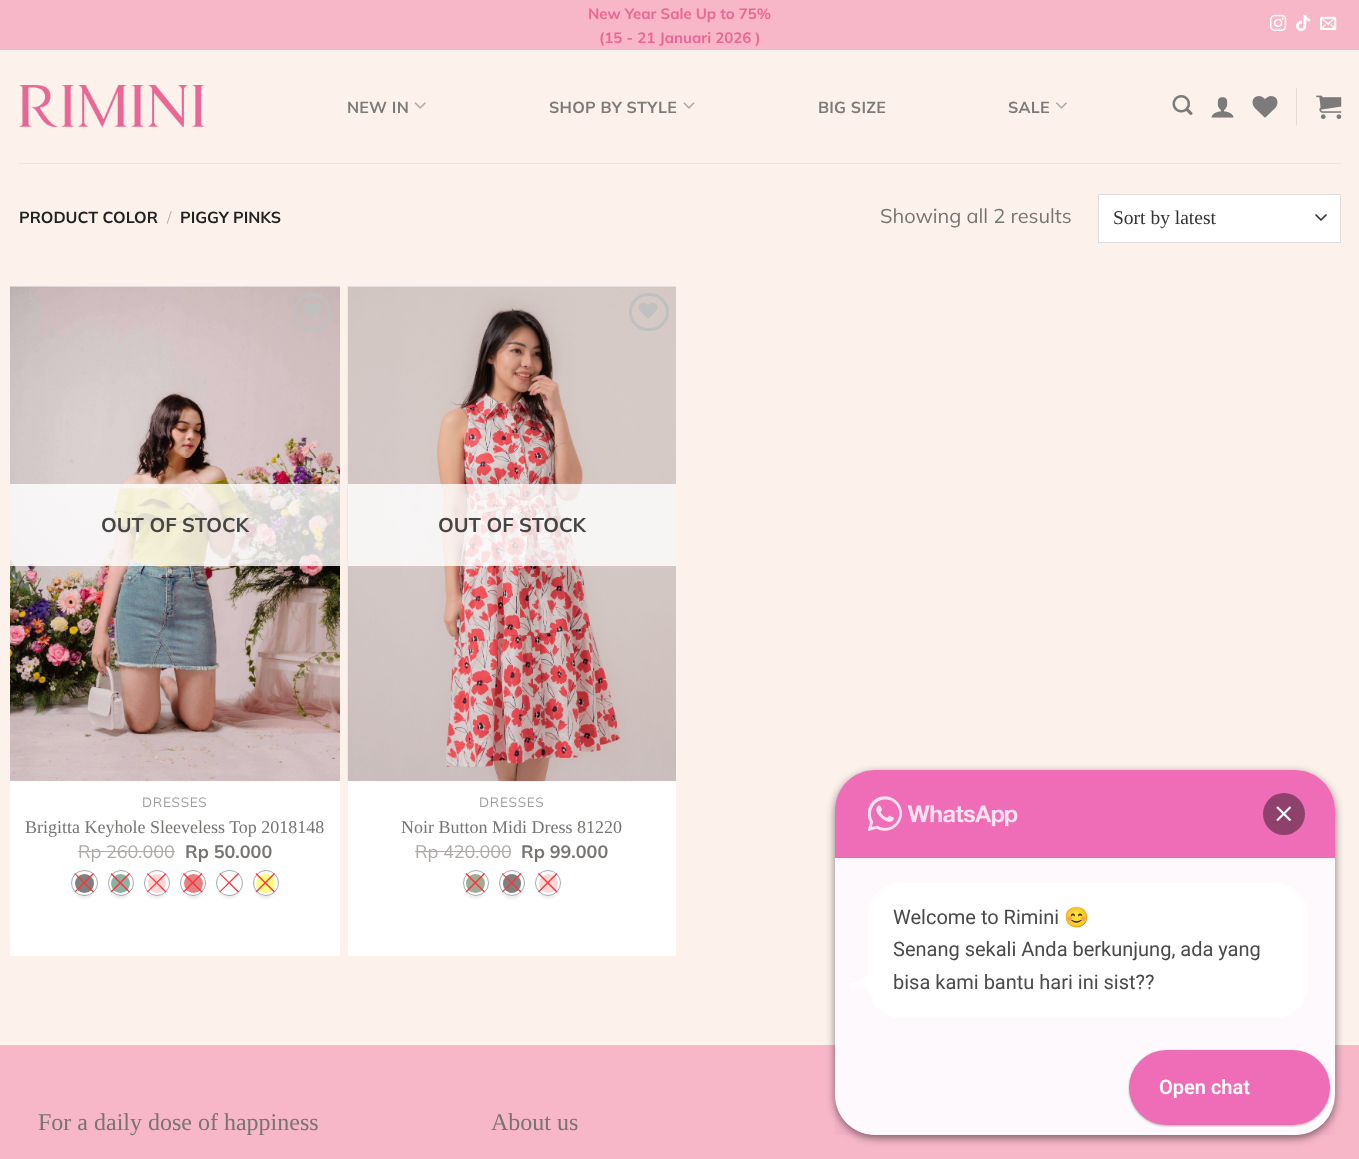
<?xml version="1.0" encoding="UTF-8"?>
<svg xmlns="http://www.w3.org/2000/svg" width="1359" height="1159">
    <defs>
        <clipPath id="clip1"><path d="M 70 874 H 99 V 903 H 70 Z M 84 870 H 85 C 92 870 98 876 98 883 C 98 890 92 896 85 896 H 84 C 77 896 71 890 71 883 C 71 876 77 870 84 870 Z" clip-rule="evenodd"/></clipPath>
        <filter id="blur1" x="-50%" y="-200%" width="200%" height="500%"><feGaussianBlur stdDeviation="1"/></filter>
        <clipPath id="clip2"><path d="M 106 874 H 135 V 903 H 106 Z M 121 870 C 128 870 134 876 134 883 C 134 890 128 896 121 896 C 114 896 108 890 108 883 C 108 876 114 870 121 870 Z" clip-rule="evenodd"/></clipPath>
        <clipPath id="clip3"><path d="M 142 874 H 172 V 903 H 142 Z M 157 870 C 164 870 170 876 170 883 C 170 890 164 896 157 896 C 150 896 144 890 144 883 C 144 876 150 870 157 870 Z" clip-rule="evenodd"/></clipPath>
        <clipPath id="clip4"><path d="M 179 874 H 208 V 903 H 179 Z M 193 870 C 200 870 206 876 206 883 C 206 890 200 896 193 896 C 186 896 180 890 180 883 C 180 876 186 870 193 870 Z" clip-rule="evenodd"/></clipPath>
        <clipPath id="clip5"><path d="M 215 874 H 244 V 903 H 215 Z M 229 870 H 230 C 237 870 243 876 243 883 C 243 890 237 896 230 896 H 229 C 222 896 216 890 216 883 C 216 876 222 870 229 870 Z" clip-rule="evenodd"/></clipPath>
        <clipPath id="clip6"><path d="M 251 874 H 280 V 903 H 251 Z M 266 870 C 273 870 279 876 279 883 C 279 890 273 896 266 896 C 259 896 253 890 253 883 C 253 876 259 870 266 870 Z" clip-rule="evenodd"/></clipPath>
        <clipPath id="clip7"><path d="M 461 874 H 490 V 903 H 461 Z M 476 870 C 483 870 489 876 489 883 C 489 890 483 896 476 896 C 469 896 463 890 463 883 C 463 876 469 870 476 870 Z" clip-rule="evenodd"/></clipPath>
        <clipPath id="clip8"><path d="M 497 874 H 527 V 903 H 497 Z M 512 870 C 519 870 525 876 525 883 C 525 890 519 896 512 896 C 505 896 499 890 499 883 C 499 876 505 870 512 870 Z" clip-rule="evenodd"/></clipPath>
        <clipPath id="clip9"><path d="M 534 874 H 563 V 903 H 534 Z M 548 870 C 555 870 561 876 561 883 C 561 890 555 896 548 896 C 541 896 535 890 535 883 C 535 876 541 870 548 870 Z" clip-rule="evenodd"/></clipPath>
        <filter id="blur2" x="-50%" y="-200%" width="200%" height="500%"><feGaussianBlur stdDeviation="4"/></filter>
        <clipPath id="clip10"><rect x="835" y="770" width="500" height="365" rx="40"/></clipPath>
    </defs>
    <rect width="100%" height="100%" fill="#FCF2EB"/>
    <rect x="0" y="0" width="1359" height="50" fill="#F7B7C9"/>
    <text x="588" y="19" font-family="Mulish" font-size="15" font-weight="700" fill="#E86795">New Year Sale Up to 75%</text>
    <text x="599" y="43" font-family="Mulish" font-size="15" font-weight="700" fill="#E86795">(15 - 21 Januari 2026 )</text>
    <image x="1270" y="14" width="17" height="17" href="img_01.png"/>
    <image x="1296" y="14" width="15" height="17" href="img_02.png"/>
    <image x="1320" y="16" width="17" height="14" href="img_03.png"/>
    <image x="18" y="85" width="187" height="43" href="img_04.png"/>
    <text x="347" y="113" font-family="Mulish" font-size="16" font-weight="700" letter-spacing="0.25" fill="#7D7B7A">NEW IN</text>
    <image x="414" y="102" width="12" height="7" href="img_05.png"/>
    <text x="549" y="113" font-family="Mulish" font-size="16" font-weight="700" letter-spacing="0.25" fill="#7D7B7A">SHOP BY STYLE</text>
    <image x="683" y="102" width="12" height="7" href="img_06.png"/>
    <text x="818" y="113" font-family="Mulish" font-size="16" font-weight="700" letter-spacing="0.25" fill="#7D7B7A">BIG SIZE</text>
    <text x="1008" y="113" font-family="Mulish" font-size="16" font-weight="700" letter-spacing="0.25" fill="#7D7B7A">SALE</text>
    <image x="1056" y="102" width="11" height="7" href="img_07.png"/>
    <image x="1172" y="95" width="21" height="20" href="img_08.png"/>
    <image x="1211" y="97" width="23" height="21" href="img_09.png"/>
    <image x="1252" y="96" width="26" height="22" href="img_10.png"/>
    <rect x="1296" y="88" width="1" height="37" fill="#E3DAD4"/>
    <image x="1316" y="95" width="26" height="24" href="img_11.png"/>
    <rect x="19" y="163" width="1322" height="1" fill="#EFE5DF"/>
    <text x="19" y="223" font-family="Mulish" font-size="16" font-weight="700" fill="#222222">PRODUCT COLOR</text>
    <text x="167" y="223" font-family="Mulish" font-size="16" font-weight="300" fill="#B0A9A5">/</text>
    <text x="180" y="223" font-family="Mulish" font-size="16" font-weight="700" fill="#222222">PIGGY PINKS</text>
    <text x="880" y="223" font-family="Mulish" font-size="20" fill="#777471">Showing all 2 results</text>
    <rect x="1099" y="195" width="241" height="47" fill="#FFFFFF"/>
    <path d="M 1316 215 L 1321 220 L 1326 215" fill="none" stroke="#333333" stroke-width="1.7" stroke-linecap="round" stroke-linejoin="round"/>
    <rect x="1098.5" y="194.5" width="242" height="48" fill="none" stroke="#DDDDDD"/>
    <text x="1113" y="224" font-family="Liberation Serif" font-size="19.5" fill="#333333">Sort by latest</text>
    <rect x="10" y="286" width="330" height="670" fill="#FFFFFF"/>
    <image x="10" y="286" width="330" height="496" href="img_12.png"/>
    <circle cx="312" cy="312" r="17.5" fill="none" stroke="#C0C0C0" stroke-width="3"/>
    <image x="302" y="303" width="19" height="16" href="img_13.png"/>
    <rect x="10" y="484" width="330" height="82" fill="#FFFFFF" fill-opacity="0.81"/>
    <text x="101" y="532" font-family="Mulish" font-size="20" font-weight="700" fill="#464544">OUT OF STOCK</text>
    <text x="142" y="807" font-family="Mulish" font-size="13.5" letter-spacing="0.75" fill="#A09E9C">DRESSES</text>
    <text x="25" y="833" font-family="Liberation Serif" font-size="18" fill="#777471">Brigitta Keyhole Sleeveless Top 2018148</text>
    <text x="78" y="858" font-family="Mulish" font-size="18" fill="#B0A9A5">Rp 260.000</text>
    <rect x="78" y="851" width="97" height="1" fill="#ADACAA"/>
    <text x="185" y="858" font-family="Mulish" font-size="18" font-weight="700" fill="#777471">Rp 50.000</text>
    <g clip-path="url(#clip1)">
        <rect x="74" y="878" width="21" height="21" rx="10.5" fill="#EEEEEE" filter="url(#blur1)"/>
    </g>
    <rect x="71.5" y="870.5" width="26" height="25" rx="12.5" fill="none" stroke="#A6A9AD"/>
    <circle cx="84.5" cy="883.5" r="9.5" fill="#808080"/>
    <path d="M 74.5 891.5 L 93 873 L 94 874 L 75 892.5 Z" fill="#FF3136"/>
    <path d="M 75 873 L 94 891.5 L 93 892.5 L 74.5 874 Z" fill="#FF3136"/>
    <g clip-path="url(#clip2)">
        <rect x="110" y="878" width="21" height="21" rx="10.5" fill="#EEEEEE" filter="url(#blur1)"/>
    </g>
    <circle cx="121" cy="883" r="12.5" fill="none" stroke="#A6A9AD"/>
    <circle cx="120.5" cy="883.5" r="9.5" fill="#8EB1A5"/>
    <path d="M 110.5 891.5 L 129 873 L 130 874 L 111.5 892.5 Z" fill="#FF3136"/>
    <path d="M 111.5 873 L 130 891.5 L 129 892.5 L 110.5 874 Z" fill="#FF3136"/>
    <g clip-path="url(#clip3)">
        <rect x="146" y="878" width="22" height="21" rx="10.5" fill="#EEEEEE" filter="url(#blur1)"/>
    </g>
    <circle cx="157" cy="883" r="12.5" fill="none" stroke="#A6A9AD"/>
    <rect x="148" y="874" width="18" height="19" rx="9" fill="#FFD8D8"/>
    <path d="M 147 891.5 L 165.5 873 L 166.5 874 L 147.5 892.5 Z" fill="#FF3136"/>
    <path d="M 147.5 873 L 166.5 891.5 L 165.5 892.5 L 147 874 Z" fill="#FF3136"/>
    <g clip-path="url(#clip4)">
        <rect x="183" y="878" width="21" height="21" rx="10.5" fill="#EEEEEE" filter="url(#blur1)"/>
    </g>
    <circle cx="193" cy="883" r="12.5" fill="none" stroke="#A6A9AD"/>
    <circle cx="193.5" cy="883.5" r="9.5" fill="#E38183"/>
    <path d="M 183 891.5 L 201.5 873 L 202.5 874 L 184 892.5 Z" fill="#FF3136"/>
    <path d="M 184 873 L 202.5 891.5 L 201.5 892.5 L 183 874 Z" fill="#FF3136"/>
    <g clip-path="url(#clip5)">
        <rect x="219" y="878" width="21" height="21" rx="10.5" fill="#EEEEEE" filter="url(#blur1)"/>
    </g>
    <rect x="216.5" y="870.5" width="26" height="25" rx="12.5" fill="none" stroke="#A6A9AD"/>
    <path d="M 219.5 891.5 L 238 873 L 239 874 L 220 892.5 Z" fill="#FF3136"/>
    <path d="M 220 873 L 239 891.5 L 238 892.5 L 219.5 874 Z" fill="#FF3136"/>
    <g clip-path="url(#clip6)">
        <rect x="255" y="878" width="21" height="21" rx="10.5" fill="#EEEEEE" filter="url(#blur1)"/>
    </g>
    <circle cx="266" cy="883" r="12.5" fill="none" stroke="#A6A9AD"/>
    <circle cx="265.5" cy="883.5" r="9.5" fill="#FFFF80"/>
    <path d="M 255.5 891.5 L 274 873 L 275 874 L 256.5 892.5 Z" fill="#FF3136"/>
    <path d="M 256.5 873 L 275 891.5 L 274 892.5 L 255.5 874 Z" fill="#FF3136"/>
    <rect x="348" y="286" width="328" height="670" fill="#FFFFFF"/>
    <image x="347" y="286" width="329" height="496" href="img_14.png"/>
    <rect x="630.5" y="294.5" width="37" height="35" rx="17.5" fill="none" stroke="#C0C0C0" stroke-width="3"/>
    <image x="638" y="302" width="20" height="17" href="img_15.png"/>
    <rect x="348" y="484" width="328" height="82" fill="#FFFFFF" fill-opacity="0.81"/>
    <text x="438" y="532" font-family="Mulish" font-size="20" font-weight="700" fill="#464544">OUT OF STOCK</text>
    <text x="479" y="807" font-family="Mulish" font-size="13.5" letter-spacing="0.75" fill="#A09E9C">DRESSES</text>
    <text x="401" y="833" font-family="Liberation Serif" font-size="18" fill="#777471">Noir Button Midi Dress 81220</text>
    <text x="415" y="858" font-family="Mulish" font-size="18" fill="#B0A9A5">Rp 420.000</text>
    <rect x="415" y="851" width="96" height="1" fill="#ADACAA"/>
    <text x="521" y="858" font-family="Mulish" font-size="18" font-weight="700" fill="#777471">Rp 99.000</text>
    <g clip-path="url(#clip7)">
        <rect x="465" y="878" width="21" height="21" rx="10.5" fill="#EEEEEE" filter="url(#blur1)"/>
    </g>
    <circle cx="476" cy="883" r="12.5" fill="none" stroke="#A6A9AD"/>
    <circle cx="475.5" cy="883.5" r="9.5" fill="#9EAB95"/>
    <path d="M 465.5 891.5 L 484 873 L 485 874 L 466.5 892.5 Z" fill="#FF3136"/>
    <path d="M 466.5 873 L 485 891.5 L 484 892.5 L 465.5 874 Z" fill="#FF3136"/>
    <g clip-path="url(#clip8)">
        <rect x="501" y="878" width="22" height="21" rx="10.5" fill="#EEEEEE" filter="url(#blur1)"/>
    </g>
    <circle cx="512" cy="883" r="12.5" fill="none" stroke="#A6A9AD"/>
    <rect x="503" y="874" width="18" height="19" rx="9" fill="#808080"/>
    <path d="M 502 891.5 L 520.5 873 L 521.5 874 L 502.5 892.5 Z" fill="#FF3136"/>
    <path d="M 502.5 873 L 521.5 891.5 L 520.5 892.5 L 502 874 Z" fill="#FF3136"/>
    <g clip-path="url(#clip9)">
        <rect x="538" y="878" width="21" height="21" rx="10.5" fill="#EEEEEE" filter="url(#blur1)"/>
    </g>
    <circle cx="548" cy="883" r="12.5" fill="none" stroke="#A6A9AD"/>
    <circle cx="548.5" cy="883.5" r="9.5" fill="#FFD8D8"/>
    <path d="M 538 891.5 L 556.5 873 L 557.5 874 L 539 892.5 Z" fill="#FF3136"/>
    <path d="M 539 873 L 557.5 891.5 L 556.5 892.5 L 538 874 Z" fill="#FF3136"/>
    <rect x="0" y="1045" width="1359" height="114" fill="#F7B7C9"/>
    <text x="38" y="1130" font-family="Liberation Serif" font-size="24" fill="#777471">For a daily dose of happiness</text>
    <text x="491" y="1130" font-family="Liberation Serif" font-size="24" fill="#777471">About us</text>
    <rect x="835" y="773" width="500" height="365" rx="40" fill="#000000" fill-opacity="0.5" filter="url(#blur2)"/>
    <rect x="835" y="770" width="500" height="365" rx="40" fill="#FFFFFF"/>
    <path d="M 875 770 H 1295 C 1317 770 1335 788 1335 810 V 858 H 835 V 810 C 835 788 853 770 875 770 Z" fill="#EF6CB6"/>
    <rect x="835" y="858" width="500" height="277" fill="#EF6CB6" fill-opacity="0.04"/>
    <image x="868" y="796" width="150" height="35" href="img_16.png"/>
    <circle cx="1284" cy="814" r="21" fill="#8F416D"/>
    <image x="1276" y="806" width="15" height="15" href="img_17.png"/>
    <rect x="868" y="883" width="440" height="135" rx="33" fill="#FFFFFF"/>
    <text x="893" y="924" font-family="Roboto" font-size="20" fill="#4A4A4A">Welcome to Rimini</text>
    <text x="1064" y="924" font-family="Noto Color Emoji" font-size="20" fill="#4A4A4A">😊</text>
    <text x="893" y="956" font-family="Roboto" font-size="20" fill="#4A4A4A">Senang sekali Anda berkunjung, ada yang</text>
    <path d="M 870 995 C 870 986.5 860.5 986.5 854.5 986.5 C 854 986.5 850 987 849 986 V 984.5 L 850 983.5 C 856.5 982.5 870 980 870 964 Z" fill="#FFFFFF"/>
    <text x="893" y="989" font-family="Roboto" font-size="20" fill="#4A4A4A">bisa kami bantu hari ini sist??</text>
    <g clip-path="url(#clip10)">
        <path d="M 835 1035 H 1330 V 1135 H 875 C 853 1135 835 1117 835 1095 Z" fill="#FFFFFF"/>
    </g>
    <rect x="835" y="1035" width="495" height="100" fill="#EF6CB6" fill-opacity="0.04"/>
    <rect x="1129" y="1051" width="201" height="75" rx="37.5" fill="#000000" fill-opacity="0.3" filter="url(#blur1)"/>
    <rect x="1129" y="1050" width="201" height="75" rx="37.5" fill="#EF6CB6"/>
    <text x="1159" y="1094" font-family="Roboto" font-size="20" font-weight="600" fill="#FFFFFF">Open chat</text>
</svg>
